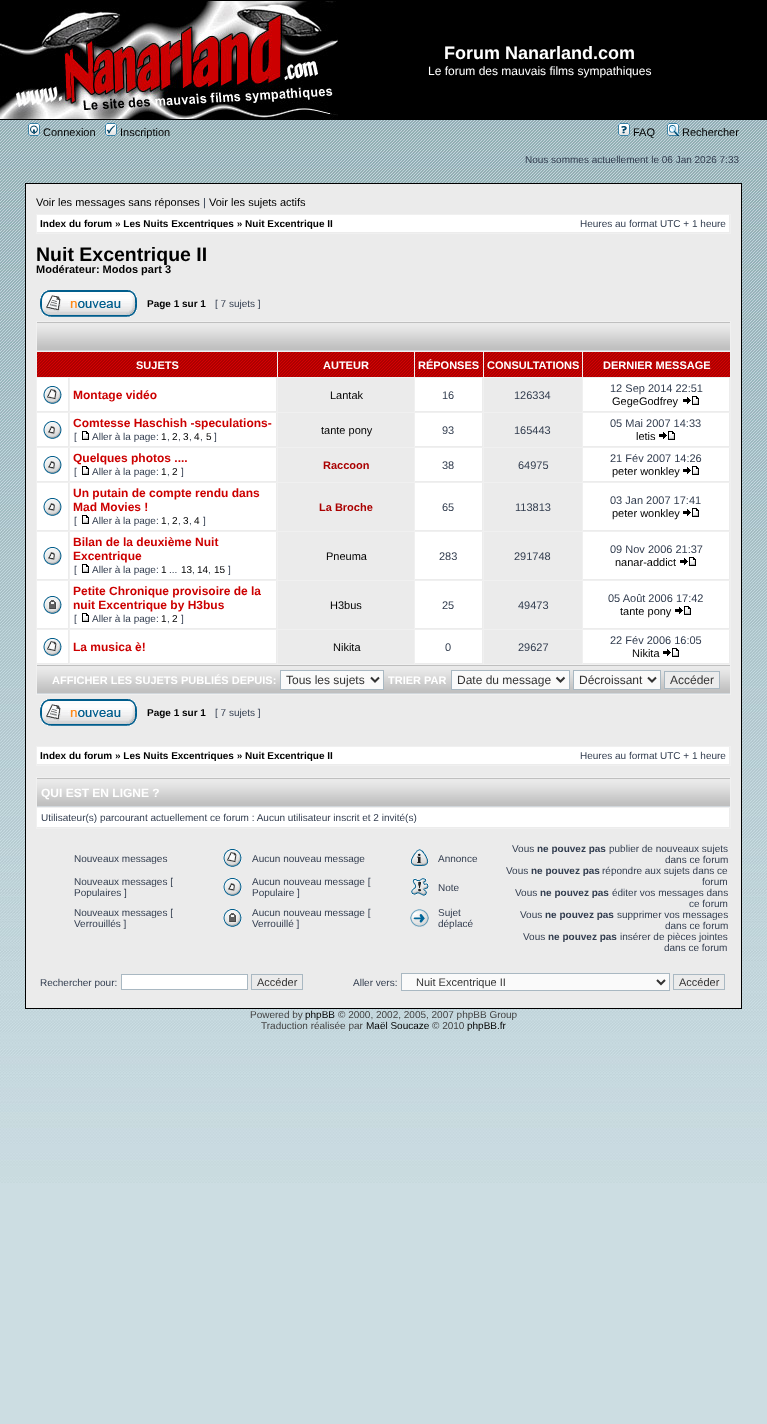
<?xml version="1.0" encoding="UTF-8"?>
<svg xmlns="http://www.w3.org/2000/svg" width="767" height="1424">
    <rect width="100%" height="100%" fill="#CCDDE2"/>
    <image x="0" y="120" width="767" height="1063" href="img_01.png"/>
    <rect x="0" y="0" width="767" height="120" fill="#000000"/>
    <image x="0" y="1" width="338" height="119" href="img_02.png"/>
    <text x="444" y="59" font-family="Liberation Sans" font-size="18" font-weight="700" fill="#FFFFFF">Forum Nanarland.com</text>
    <text x="428" y="75" font-family="Liberation Sans" font-size="12" fill="#FFFFFF">Le forum des mauvais films sympathiques</text>
    <image x="28" y="123" width="12" height="13" href="img_03.png"/>
    <text x="43" y="136" font-family="Liberation Sans" font-size="11" fill="#000000">Connexion</text>
    <image x="105" y="123" width="12" height="13" href="img_04.png"/>
    <text x="120" y="136" font-family="Liberation Sans" font-size="11" fill="#000000">Inscription</text>
    <image x="618" y="123" width="12" height="13" href="img_05.png"/>
    <text x="633" y="136" font-family="Liberation Sans" font-size="11" fill="#000000">FAQ</text>
    <image x="667" y="123" width="12" height="13" href="img_06.png"/>
    <text x="682" y="136" font-family="Liberation Sans" font-size="11" fill="#000000">Rechercher</text>
    <text x="525" y="163" font-family="Liberation Sans" font-size="10" fill="#323D4F">Nous sommes actuellement le 06 Jan 2026 7:33</text>
    <rect x="25.5" y="183.5" width="716" height="825" fill="#EBEBEB" stroke="#000000"/>
    <text x="36" y="206" font-family="Liberation Sans" font-size="11" fill="#000000">Voir les messages sans réponses</text>
    <text x="203" y="206" font-family="Liberation Sans" font-size="11" fill="#323D4F">|</text>
    <text x="209" y="206" font-family="Liberation Sans" font-size="11" fill="#000000">Voir les sujets actifs</text>
    <rect x="36" y="214" width="695" height="20" fill="#F0F0F0"/>
    <rect x="37" y="215" width="692" height="17" fill="#FFFFFF"/>
    <rect x="729" y="215" width="1" height="18" fill="#ECECEC"/>
    <rect x="37" y="232" width="693" height="1" fill="#ECECEC"/>
    <text x="40" y="227" font-family="Liberation Sans" font-size="10" font-weight="700" fill="#000000">Index du forum » Les Nuits Excentriques » Nuit Excentrique II</text>
    <text x="580" y="227" font-family="Liberation Sans" font-size="10" fill="#323D4F">Heures au format UTC + 1 heure</text>
    <text x="36" y="261" font-family="Liberation Sans" font-size="19.5" font-weight="700" fill="#000000">Nuit Excentrique II</text>
    <text x="36" y="273" font-family="Liberation Sans" font-size="11" font-weight="700" fill="#000000">Modérateur: Modos part 3</text>
    <image x="40" y="290" width="97" height="27" href="img_07.png"/>
    <text x="147" y="307" font-family="Liberation Sans" font-size="10" font-weight="700" fill="#000000">Page 1 sur 1</text>
    <text x="215" y="307" font-family="Liberation Sans" font-size="10" fill="#323D4F">[ 7 sujets ]</text>
    <rect x="36" y="321" width="695" height="374" fill="#F0F0F0"/>
    <rect x="37" y="350" width="693" height="1" fill="#D1D7DC"/>
    <image x="37" y="322" width="693" height="28" href="img_08.png"/>
    <image x="37" y="352" width="240" height="25" href="img_09.png"/>
    <text x="136" y="369" font-family="Liberation Sans" font-size="11" font-weight="700" fill="#FFFFFF">SUJETS</text>
    <image x="278" y="352" width="136" height="25" href="img_10.png"/>
    <text x="323" y="369" font-family="Liberation Sans" font-size="11" font-weight="700" fill="#FFFFFF">AUTEUR</text>
    <image x="415" y="352" width="68" height="25" href="img_11.png"/>
    <text x="418" y="369" font-family="Liberation Sans" font-size="11" font-weight="700" fill="#FFFFFF">RÉPONSES</text>
    <image x="484" y="352" width="98" height="25" href="img_12.png"/>
    <text x="487" y="369" font-family="Liberation Sans" font-size="11" font-weight="700" fill="#FFFFFF">CONSULTATIONS</text>
    <image x="583" y="352" width="147" height="25" href="img_13.png"/>
    <text x="603" y="369" font-family="Liberation Sans" font-size="11" font-weight="700" fill="#FFFFFF">DERNIER MESSAGE</text>
    <rect x="37" y="378" width="31" height="33" fill="#FFFFFF"/>
    <rect x="68" y="378" width="1" height="34" fill="#ECECEC"/>
    <rect x="37" y="411" width="32" height="1" fill="#ECECEC"/>
    <image x="43" y="386" width="19" height="18" href="img_14.png"/>
    <rect x="70" y="378" width="206" height="33" fill="#FFFFFF"/>
    <rect x="276" y="378" width="1" height="34" fill="#ECECEC"/>
    <rect x="70" y="411" width="207" height="1" fill="#ECECEC"/>
    <text x="73" y="399" font-family="Liberation Sans" font-size="12" font-weight="700" fill="#CC0000">Montage vidéo</text>
    <rect x="278" y="378" width="136" height="34" fill="#EBEBEB"/>
    <text x="330" y="399" font-family="Liberation Sans" font-size="11" fill="#000000">Lantak</text>
    <rect x="415" y="378" width="67" height="33" fill="#FFFFFF"/>
    <rect x="482" y="378" width="1" height="34" fill="#ECECEC"/>
    <rect x="415" y="411" width="68" height="1" fill="#ECECEC"/>
    <text x="442" y="399" font-family="Liberation Sans" font-size="11" fill="#323D4F">16</text>
    <rect x="484" y="378" width="98" height="34" fill="#EBEBEB"/>
    <text x="514" y="399" font-family="Liberation Sans" font-size="11" fill="#323D4F">126334</text>
    <rect x="583" y="378" width="146" height="33" fill="#FFFFFF"/>
    <rect x="729" y="378" width="1" height="34" fill="#ECECEC"/>
    <rect x="583" y="411" width="147" height="1" fill="#ECECEC"/>
    <text x="610" y="392" font-family="Liberation Sans" font-size="11" fill="#323D4F">12 Sep 2014 22:51</text>
    <text x="612" y="405" font-family="Liberation Sans" font-size="11" fill="#000000">GegeGodfrey</text>
    <image x="683" y="396" width="16" height="9" href="img_15.png"/>
    <rect x="37" y="413" width="31" height="33" fill="#FFFFFF"/>
    <rect x="68" y="413" width="1" height="34" fill="#ECECEC"/>
    <rect x="37" y="446" width="32" height="1" fill="#ECECEC"/>
    <image x="43" y="421" width="19" height="18" href="img_16.png"/>
    <rect x="70" y="413" width="206" height="33" fill="#FFFFFF"/>
    <rect x="276" y="413" width="1" height="34" fill="#ECECEC"/>
    <rect x="70" y="446" width="207" height="1" fill="#ECECEC"/>
    <text x="73" y="427" font-family="Liberation Sans" font-size="12" font-weight="700" fill="#CC0000">Comtesse Haschish -speculations-</text>
    <text x="74" y="440" font-family="Liberation Sans" font-size="10" fill="#323D4F">[</text>
    <image x="82" y="431" width="7" height="9" href="img_17.png"/>
    <text x="92" y="440" font-family="Liberation Sans" font-size="10" fill="#323D4F">Aller à la page:</text>
    <text x="161" y="440" font-family="Liberation Sans" font-size="10" fill="#000000">1</text>
    <text x="167" y="440" font-family="Liberation Sans" font-size="10" fill="#323D4F">,</text>
    <text x="172" y="440" font-family="Liberation Sans" font-size="10" fill="#000000">2</text>
    <text x="178" y="440" font-family="Liberation Sans" font-size="10" fill="#323D4F">,</text>
    <text x="183" y="440" font-family="Liberation Sans" font-size="10" fill="#000000">3</text>
    <text x="189" y="440" font-family="Liberation Sans" font-size="10" fill="#323D4F">,</text>
    <text x="194" y="440" font-family="Liberation Sans" font-size="10" fill="#000000">4</text>
    <text x="200" y="440" font-family="Liberation Sans" font-size="10" fill="#323D4F">,</text>
    <text x="206" y="440" font-family="Liberation Sans" font-size="10" fill="#000000">5</text>
    <text x="214" y="440" font-family="Liberation Sans" font-size="10" fill="#323D4F">]</text>
    <rect x="278" y="413" width="136" height="34" fill="#EBEBEB"/>
    <text x="321" y="434" font-family="Liberation Sans" font-size="11" fill="#000000">tante pony</text>
    <rect x="415" y="413" width="67" height="33" fill="#FFFFFF"/>
    <rect x="482" y="413" width="1" height="34" fill="#ECECEC"/>
    <rect x="415" y="446" width="68" height="1" fill="#ECECEC"/>
    <text x="442" y="434" font-family="Liberation Sans" font-size="11" fill="#323D4F">93</text>
    <rect x="484" y="413" width="98" height="34" fill="#EBEBEB"/>
    <text x="514" y="434" font-family="Liberation Sans" font-size="11" fill="#323D4F">165443</text>
    <rect x="583" y="413" width="146" height="33" fill="#FFFFFF"/>
    <rect x="729" y="413" width="1" height="34" fill="#ECECEC"/>
    <rect x="583" y="446" width="147" height="1" fill="#ECECEC"/>
    <text x="610" y="427" font-family="Liberation Sans" font-size="11" fill="#323D4F">05 Mai 2007 14:33</text>
    <text x="636" y="440" font-family="Liberation Sans" font-size="11" fill="#000000">letis</text>
    <image x="659" y="431" width="16" height="9" href="img_15.png"/>
    <rect x="37" y="448" width="31" height="33" fill="#FFFFFF"/>
    <rect x="68" y="448" width="1" height="34" fill="#ECECEC"/>
    <rect x="37" y="481" width="32" height="1" fill="#ECECEC"/>
    <image x="43" y="456" width="19" height="18" href="img_16.png"/>
    <rect x="70" y="448" width="206" height="33" fill="#FFFFFF"/>
    <rect x="276" y="448" width="1" height="34" fill="#ECECEC"/>
    <rect x="70" y="481" width="207" height="1" fill="#ECECEC"/>
    <text x="73" y="462" font-family="Liberation Sans" font-size="12" font-weight="700" fill="#CC0000">Quelques photos ....</text>
    <text x="74" y="475" font-family="Liberation Sans" font-size="10" fill="#323D4F">[</text>
    <image x="82" y="466" width="7" height="9" href="img_17.png"/>
    <text x="92" y="475" font-family="Liberation Sans" font-size="10" fill="#323D4F">Aller à la page:</text>
    <text x="161" y="475" font-family="Liberation Sans" font-size="10" fill="#000000">1</text>
    <text x="167" y="475" font-family="Liberation Sans" font-size="10" fill="#323D4F">,</text>
    <text x="172" y="475" font-family="Liberation Sans" font-size="10" fill="#000000">2</text>
    <text x="181" y="475" font-family="Liberation Sans" font-size="10" fill="#323D4F">]</text>
    <rect x="278" y="448" width="136" height="34" fill="#EBEBEB"/>
    <text x="323" y="469" font-family="Liberation Sans" font-size="11" font-weight="700" fill="#AA0000">Raccoon</text>
    <rect x="415" y="448" width="67" height="33" fill="#FFFFFF"/>
    <rect x="482" y="448" width="1" height="34" fill="#ECECEC"/>
    <rect x="415" y="481" width="68" height="1" fill="#ECECEC"/>
    <text x="442" y="469" font-family="Liberation Sans" font-size="11" fill="#323D4F">38</text>
    <rect x="484" y="448" width="98" height="34" fill="#EBEBEB"/>
    <text x="518" y="469" font-family="Liberation Sans" font-size="11" fill="#323D4F">64975</text>
    <rect x="583" y="448" width="146" height="33" fill="#FFFFFF"/>
    <rect x="729" y="448" width="1" height="34" fill="#ECECEC"/>
    <rect x="583" y="481" width="147" height="1" fill="#ECECEC"/>
    <text x="610" y="462" font-family="Liberation Sans" font-size="11" fill="#323D4F">21 Fév 2007 14:26</text>
    <text x="612" y="475" font-family="Liberation Sans" font-size="11" fill="#000000">peter wonkley</text>
    <image x="683" y="466" width="16" height="9" href="img_15.png"/>
    <rect x="37" y="483" width="31" height="47" fill="#FFFFFF"/>
    <rect x="68" y="483" width="1" height="48" fill="#ECECEC"/>
    <rect x="37" y="530" width="32" height="1" fill="#ECECEC"/>
    <image x="43" y="498" width="19" height="18" href="img_16.png"/>
    <rect x="70" y="483" width="206" height="47" fill="#FFFFFF"/>
    <rect x="276" y="483" width="1" height="48" fill="#ECECEC"/>
    <rect x="70" y="530" width="207" height="1" fill="#ECECEC"/>
    <text font-family="Liberation Sans" font-size="12" font-weight="700" fill="#CC0000">
        <tspan x="73" y="497">Un putain de compte rendu dans</tspan>
        <tspan x="73" y="511">Mad Movies !</tspan>
    </text>
    <text x="74" y="524" font-family="Liberation Sans" font-size="10" fill="#323D4F">[</text>
    <image x="82" y="515" width="7" height="9" href="img_17.png"/>
    <text x="92" y="524" font-family="Liberation Sans" font-size="10" fill="#323D4F">Aller à la page:</text>
    <text x="161" y="524" font-family="Liberation Sans" font-size="10" fill="#000000">1</text>
    <text x="167" y="524" font-family="Liberation Sans" font-size="10" fill="#323D4F">,</text>
    <text x="172" y="524" font-family="Liberation Sans" font-size="10" fill="#000000">2</text>
    <text x="178" y="524" font-family="Liberation Sans" font-size="10" fill="#323D4F">,</text>
    <text x="183" y="524" font-family="Liberation Sans" font-size="10" fill="#000000">3</text>
    <text x="189" y="524" font-family="Liberation Sans" font-size="10" fill="#323D4F">,</text>
    <text x="194" y="524" font-family="Liberation Sans" font-size="10" fill="#000000">4</text>
    <text x="203" y="524" font-family="Liberation Sans" font-size="10" fill="#323D4F">]</text>
    <rect x="278" y="483" width="136" height="48" fill="#EBEBEB"/>
    <text x="319" y="511" font-family="Liberation Sans" font-size="11" font-weight="700" fill="#AA0000">La Broche</text>
    <rect x="415" y="483" width="67" height="47" fill="#FFFFFF"/>
    <rect x="482" y="483" width="1" height="48" fill="#ECECEC"/>
    <rect x="415" y="530" width="68" height="1" fill="#ECECEC"/>
    <text x="442" y="511" font-family="Liberation Sans" font-size="11" fill="#323D4F">65</text>
    <rect x="484" y="483" width="98" height="48" fill="#EBEBEB"/>
    <text x="515" y="511" font-family="Liberation Sans" font-size="11" fill="#323D4F">113813</text>
    <rect x="583" y="483" width="146" height="47" fill="#FFFFFF"/>
    <rect x="729" y="483" width="1" height="48" fill="#ECECEC"/>
    <rect x="583" y="530" width="147" height="1" fill="#ECECEC"/>
    <text x="610" y="504" font-family="Liberation Sans" font-size="11" fill="#323D4F">03 Jan 2007 17:41</text>
    <text x="612" y="517" font-family="Liberation Sans" font-size="11" fill="#000000">peter wonkley</text>
    <image x="683" y="508" width="16" height="9" href="img_15.png"/>
    <rect x="37" y="532" width="31" height="47" fill="#FFFFFF"/>
    <rect x="68" y="532" width="1" height="48" fill="#ECECEC"/>
    <rect x="37" y="579" width="32" height="1" fill="#ECECEC"/>
    <image x="43" y="547" width="19" height="18" href="img_16.png"/>
    <rect x="70" y="532" width="206" height="47" fill="#FFFFFF"/>
    <rect x="276" y="532" width="1" height="48" fill="#ECECEC"/>
    <rect x="70" y="579" width="207" height="1" fill="#ECECEC"/>
    <text font-family="Liberation Sans" font-size="12" font-weight="700" fill="#CC0000">
        <tspan x="73" y="546">Bilan de la deuxième Nuit</tspan>
        <tspan x="73" y="560">Excentrique</tspan>
    </text>
    <text x="74" y="573" font-family="Liberation Sans" font-size="10" fill="#323D4F">[</text>
    <image x="82" y="564" width="7" height="9" href="img_17.png"/>
    <text x="92" y="573" font-family="Liberation Sans" font-size="10" fill="#323D4F">Aller à la page:</text>
    <text x="161" y="573" font-family="Liberation Sans" font-size="10" fill="#000000">1</text>
    <text x="169" y="573" font-family="Liberation Sans" font-size="10" fill="#323D4F">...</text>
    <text x="181" y="573" font-family="Liberation Sans" font-size="10" fill="#000000">13</text>
    <text x="192" y="573" font-family="Liberation Sans" font-size="10" fill="#323D4F">,</text>
    <text x="197" y="573" font-family="Liberation Sans" font-size="10" fill="#000000">14</text>
    <text x="208" y="573" font-family="Liberation Sans" font-size="10" fill="#323D4F">,</text>
    <text x="214" y="573" font-family="Liberation Sans" font-size="10" fill="#000000">15</text>
    <text x="228" y="573" font-family="Liberation Sans" font-size="10" fill="#323D4F">]</text>
    <rect x="278" y="532" width="136" height="48" fill="#EBEBEB"/>
    <text x="326" y="560" font-family="Liberation Sans" font-size="11" fill="#000000">Pneuma</text>
    <rect x="415" y="532" width="67" height="47" fill="#FFFFFF"/>
    <rect x="482" y="532" width="1" height="48" fill="#ECECEC"/>
    <rect x="415" y="579" width="68" height="1" fill="#ECECEC"/>
    <text x="439" y="560" font-family="Liberation Sans" font-size="11" fill="#323D4F">283</text>
    <rect x="484" y="532" width="98" height="48" fill="#EBEBEB"/>
    <text x="514" y="560" font-family="Liberation Sans" font-size="11" fill="#323D4F">291748</text>
    <rect x="583" y="532" width="146" height="47" fill="#FFFFFF"/>
    <rect x="729" y="532" width="1" height="48" fill="#ECECEC"/>
    <rect x="583" y="579" width="147" height="1" fill="#ECECEC"/>
    <text x="610" y="553" font-family="Liberation Sans" font-size="11" fill="#323D4F">09 Nov 2006 21:37</text>
    <text x="615" y="566" font-family="Liberation Sans" font-size="11" fill="#000000">nanar-addict</text>
    <image x="680" y="557" width="16" height="9" href="img_15.png"/>
    <rect x="37" y="581" width="31" height="47" fill="#FFFFFF"/>
    <rect x="68" y="581" width="1" height="48" fill="#ECECEC"/>
    <rect x="37" y="628" width="32" height="1" fill="#ECECEC"/>
    <image x="43" y="596" width="19" height="18" href="img_18.png"/>
    <rect x="70" y="581" width="206" height="47" fill="#FFFFFF"/>
    <rect x="276" y="581" width="1" height="48" fill="#ECECEC"/>
    <rect x="70" y="628" width="207" height="1" fill="#ECECEC"/>
    <text font-family="Liberation Sans" font-size="12" font-weight="700" fill="#CC0000">
        <tspan x="73" y="595">Petite Chronique provisoire de la</tspan>
        <tspan x="73" y="609">nuit Excentrique by H3bus</tspan>
    </text>
    <text x="74" y="622" font-family="Liberation Sans" font-size="10" fill="#323D4F">[</text>
    <image x="82" y="613" width="7" height="9" href="img_17.png"/>
    <text x="92" y="622" font-family="Liberation Sans" font-size="10" fill="#323D4F">Aller à la page:</text>
    <text x="161" y="622" font-family="Liberation Sans" font-size="10" fill="#000000">1</text>
    <text x="167" y="622" font-family="Liberation Sans" font-size="10" fill="#323D4F">,</text>
    <text x="172" y="622" font-family="Liberation Sans" font-size="10" fill="#000000">2</text>
    <text x="181" y="622" font-family="Liberation Sans" font-size="10" fill="#323D4F">]</text>
    <rect x="278" y="581" width="136" height="48" fill="#EBEBEB"/>
    <text x="330" y="609" font-family="Liberation Sans" font-size="11" fill="#000000">H3bus</text>
    <rect x="415" y="581" width="67" height="47" fill="#FFFFFF"/>
    <rect x="482" y="581" width="1" height="48" fill="#ECECEC"/>
    <rect x="415" y="628" width="68" height="1" fill="#ECECEC"/>
    <text x="442" y="609" font-family="Liberation Sans" font-size="11" fill="#323D4F">25</text>
    <rect x="484" y="581" width="98" height="48" fill="#EBEBEB"/>
    <text x="518" y="609" font-family="Liberation Sans" font-size="11" fill="#323D4F">49473</text>
    <rect x="583" y="581" width="146" height="47" fill="#FFFFFF"/>
    <rect x="729" y="581" width="1" height="48" fill="#ECECEC"/>
    <rect x="583" y="628" width="147" height="1" fill="#ECECEC"/>
    <text x="608" y="602" font-family="Liberation Sans" font-size="11" fill="#323D4F">05 Août 2006 17:42</text>
    <text x="620" y="615" font-family="Liberation Sans" font-size="11" fill="#000000">tante pony</text>
    <image x="675" y="606" width="16" height="9" href="img_15.png"/>
    <rect x="37" y="630" width="31" height="33" fill="#FFFFFF"/>
    <rect x="68" y="630" width="1" height="34" fill="#ECECEC"/>
    <rect x="37" y="663" width="32" height="1" fill="#ECECEC"/>
    <image x="43" y="638" width="19" height="18" href="img_14.png"/>
    <rect x="70" y="630" width="206" height="33" fill="#FFFFFF"/>
    <rect x="276" y="630" width="1" height="34" fill="#ECECEC"/>
    <rect x="70" y="663" width="207" height="1" fill="#ECECEC"/>
    <text x="73" y="651" font-family="Liberation Sans" font-size="12" font-weight="700" fill="#CC0000">La musica è!</text>
    <rect x="278" y="630" width="136" height="34" fill="#EBEBEB"/>
    <text x="333" y="651" font-family="Liberation Sans" font-size="11" fill="#000000">Nikita</text>
    <rect x="415" y="630" width="67" height="33" fill="#FFFFFF"/>
    <rect x="482" y="630" width="1" height="34" fill="#ECECEC"/>
    <rect x="415" y="663" width="68" height="1" fill="#ECECEC"/>
    <text x="445" y="651" font-family="Liberation Sans" font-size="11" fill="#323D4F">0</text>
    <rect x="484" y="630" width="98" height="34" fill="#EBEBEB"/>
    <text x="518" y="651" font-family="Liberation Sans" font-size="11" fill="#323D4F">29627</text>
    <rect x="583" y="630" width="146" height="33" fill="#FFFFFF"/>
    <rect x="729" y="630" width="1" height="34" fill="#ECECEC"/>
    <rect x="583" y="663" width="147" height="1" fill="#ECECEC"/>
    <text x="610" y="644" font-family="Liberation Sans" font-size="11" fill="#323D4F">22 Fév 2006 16:05</text>
    <text x="632" y="657" font-family="Liberation Sans" font-size="11" fill="#000000">Nikita</text>
    <image x="663" y="648" width="16" height="9" href="img_15.png"/>
    <rect x="37" y="693" width="693" height="1" fill="#D1D7DC"/>
    <image x="37" y="665" width="693" height="28" href="img_08.png"/>
    <text x="52" y="684" font-family="Liberation Sans" font-size="11" font-weight="700" fill="#FFFFFF">AFFICHER LES SUJETS PUBLIÉS DEPUIS:</text>
    <rect x="280.5" y="670.5" width="103" height="19" fill="#FAFAFA" stroke="#A9B8C2"/>
    <path d="M 371 677.5 L 375 681.5 L 379 677.5" fill="none" stroke="#333333" stroke-width="2"/>
    <text x="286" y="684" font-family="Liberation Sans" font-size="12" fill="#333333">Tous les sujets</text>
    <text x="388" y="684" font-family="Liberation Sans" font-size="11" font-weight="700" fill="#FFFFFF">TRIER PAR</text>
    <rect x="451.5" y="670.5" width="118" height="19" fill="#FAFAFA" stroke="#A9B8C2"/>
    <path d="M 556.5 677.5 L 560.5 681.5 L 564.5 677.5" fill="none" stroke="#333333" stroke-width="2"/>
    <text x="457" y="684" font-family="Liberation Sans" font-size="12" fill="#333333">Date du message</text>
    <rect x="573.5" y="670.5" width="87" height="19" fill="#FAFAFA" stroke="#A9B8C2"/>
    <path d="M 648 677.5 L 652 681.5 L 656 677.5" fill="none" stroke="#333333" stroke-width="2"/>
    <text x="579" y="684" font-family="Liberation Sans" font-size="12" fill="#333333">Décroissant</text>
    <rect x="664.5" y="671.5" width="55" height="17" fill="#ECECEC" stroke="#A9B8C2"/>
    <text x="670" y="684" font-family="Liberation Sans" font-size="12" fill="#333333">Accéder</text>
    <image x="40" y="699" width="97" height="27" href="img_07.png"/>
    <text x="147" y="716" font-family="Liberation Sans" font-size="10" font-weight="700" fill="#000000">Page 1 sur 1</text>
    <text x="215" y="716" font-family="Liberation Sans" font-size="10" fill="#323D4F">[ 7 sujets ]</text>
    <rect x="36" y="746" width="695" height="20" fill="#F0F0F0"/>
    <rect x="37" y="747" width="692" height="17" fill="#FFFFFF"/>
    <rect x="729" y="747" width="1" height="18" fill="#ECECEC"/>
    <rect x="37" y="764" width="693" height="1" fill="#ECECEC"/>
    <text x="40" y="759" font-family="Liberation Sans" font-size="10" font-weight="700" fill="#000000">Index du forum » Les Nuits Excentriques » Nuit Excentrique II</text>
    <text x="580" y="759" font-family="Liberation Sans" font-size="10" fill="#323D4F">Heures au format UTC + 1 heure</text>
    <rect x="36" y="777" width="695" height="52" fill="#F0F0F0"/>
    <rect x="37" y="806" width="693" height="1" fill="#D1D7DC"/>
    <image x="37" y="778" width="693" height="28" href="img_08.png"/>
    <text x="41" y="797" font-family="Liberation Sans" font-size="12" font-weight="700" fill="#FFFFFF">QUI EST EN LIGNE ?</text>
    <rect x="37" y="808" width="692" height="19" fill="#FFFFFF"/>
    <rect x="729" y="808" width="1" height="20" fill="#ECECEC"/>
    <rect x="37" y="827" width="693" height="1" fill="#ECECEC"/>
    <text x="41" y="821" font-family="Liberation Sans" font-size="10" fill="#323D4F">Utilisateur(s) parcourant actuellement ce forum : Aucun utilisateur inscrit et 2 invité(s)</text>
    <text x="74" y="862" font-family="Liberation Sans" font-size="10" fill="#323D4F">Nouveaux messages</text>
    <image x="223" y="849" width="19" height="18" href="img_19.png"/>
    <text x="252" y="862" font-family="Liberation Sans" font-size="10" fill="#323D4F">Aucun nouveau message</text>
    <image x="410" y="849" width="19" height="17" href="img_20.png"/>
    <text x="438" y="862" font-family="Liberation Sans" font-size="10" fill="#323D4F">Annonce</text>
    <text font-family="Liberation Sans" font-size="10" fill="#323D4F">
        <tspan x="74" y="885">Nouveaux messages [</tspan>
        <tspan x="74" y="896">Populaires ]</tspan>
    </text>
    <image x="223" y="878" width="19" height="18" href="img_21.png"/>
    <text font-family="Liberation Sans" font-size="10" fill="#323D4F">
        <tspan x="252" y="885">Aucun nouveau message [</tspan>
        <tspan x="252" y="896">Populaire ]</tspan>
    </text>
    <image x="411" y="878" width="18" height="18" href="img_22.png"/>
    <text x="438" y="891" font-family="Liberation Sans" font-size="10" fill="#323D4F">Note</text>
    <text font-family="Liberation Sans" font-size="10" fill="#323D4F">
        <tspan x="74" y="916">Nouveaux messages [</tspan>
        <tspan x="74" y="927">Verrouillés ]</tspan>
    </text>
    <image x="223" y="909" width="19" height="18" href="img_23.png"/>
    <text font-family="Liberation Sans" font-size="10" fill="#323D4F">
        <tspan x="252" y="916">Aucun nouveau message [</tspan>
        <tspan x="252" y="927">Verrouillé ]</tspan>
    </text>
    <image x="410" y="909" width="19" height="18" href="img_24.png"/>
    <text font-family="Liberation Sans" font-size="10" fill="#323D4F">
        <tspan x="438" y="916">Sujet</tspan>
        <tspan x="438" y="927">déplacé</tspan>
    </text>
    <text x="512" y="852" font-family="Liberation Sans" font-size="10" fill="#323D4F">Vous</text>
    <text x="537" y="852" font-family="Liberation Sans" font-size="10" font-weight="700" fill="#323D4F">ne pouvez pas</text>
    <text x="609" y="852" font-family="Liberation Sans" font-size="10" fill="#323D4F">publier de nouveaux sujets</text>
    <text x="665" y="863" font-family="Liberation Sans" font-size="10" fill="#323D4F">dans ce forum</text>
    <text x="506" y="874" font-family="Liberation Sans" font-size="10" fill="#323D4F">Vous</text>
    <text x="531" y="874" font-family="Liberation Sans" font-size="10" font-weight="700" fill="#323D4F">ne pouvez pas</text>
    <text x="602" y="874" font-family="Liberation Sans" font-size="10" fill="#323D4F">répondre aux sujets dans ce</text>
    <text x="702" y="885" font-family="Liberation Sans" font-size="10" fill="#323D4F">forum</text>
    <text x="515" y="896" font-family="Liberation Sans" font-size="10" fill="#323D4F">Vous</text>
    <text x="540" y="896" font-family="Liberation Sans" font-size="10" font-weight="700" fill="#323D4F">ne pouvez pas</text>
    <text x="612" y="896" font-family="Liberation Sans" font-size="10" fill="#323D4F">éditer vos messages dans</text>
    <text x="689" y="907" font-family="Liberation Sans" font-size="10" fill="#323D4F">ce forum</text>
    <text x="520" y="918" font-family="Liberation Sans" font-size="10" fill="#323D4F">Vous</text>
    <text x="545" y="918" font-family="Liberation Sans" font-size="10" font-weight="700" fill="#323D4F">ne pouvez pas</text>
    <text x="617" y="918" font-family="Liberation Sans" font-size="10" fill="#323D4F">supprimer vos messages</text>
    <text x="665" y="929" font-family="Liberation Sans" font-size="10" fill="#323D4F">dans ce forum</text>
    <text x="523" y="940" font-family="Liberation Sans" font-size="10" fill="#323D4F">Vous</text>
    <text x="548" y="940" font-family="Liberation Sans" font-size="10" font-weight="700" fill="#323D4F">ne pouvez pas</text>
    <text x="620" y="940" font-family="Liberation Sans" font-size="10" fill="#323D4F">insérer de pièces jointes</text>
    <text x="664" y="951" font-family="Liberation Sans" font-size="10" fill="#323D4F">dans ce forum</text>
    <text x="40" y="986" font-family="Liberation Sans" font-size="10" fill="#323D4F">Rechercher pour:</text>
    <rect x="121.5" y="974.5" width="126" height="15" fill="#FFFFFF" stroke="#A9B8C2"/>
    <rect x="251.5" y="974.5" width="51" height="15" fill="none" stroke="#A9B8C2"/>
    <text x="257" y="986" font-family="Liberation Sans" font-size="11" fill="#333333">Accéder</text>
    <text x="353" y="986" font-family="Liberation Sans" font-size="10" fill="#323D4F">Aller vers:</text>
    <rect x="401.5" y="973.5" width="268" height="17" fill="#FAFAFA" stroke="#A9B8C2"/>
    <path d="M 657 980 L 661 984 L 665 980" fill="none" stroke="#333333" stroke-width="2"/>
    <text x="416" y="986" font-family="Liberation Sans" font-size="11" fill="#333333">Nuit Excentrique II</text>
    <rect x="673.5" y="974.5" width="51" height="15" fill="none" stroke="#A9B8C2"/>
    <text x="679" y="986" font-family="Liberation Sans" font-size="11" fill="#333333">Accéder</text>
    <text x="250" y="1018" font-family="Liberation Sans" font-size="10" fill="#444444">Powered by</text>
    <text x="305" y="1018" font-family="Liberation Sans" font-size="10" fill="#000000">phpBB</text>
    <text x="338" y="1018" font-family="Liberation Sans" font-size="10" fill="#444444">© 2000, 2002, 2005, 2007 phpBB Group</text>
    <text x="261" y="1029" font-family="Liberation Sans" font-size="10" fill="#444444">Traduction réalisée par</text>
    <text x="366" y="1029" font-family="Liberation Sans" font-size="10" fill="#000000">Maël Soucaze</text>
    <text x="432" y="1029" font-family="Liberation Sans" font-size="10" fill="#444444">© 2010</text>
    <text x="467" y="1029" font-family="Liberation Sans" font-size="10" fill="#000000">phpBB.fr</text>
</svg>
